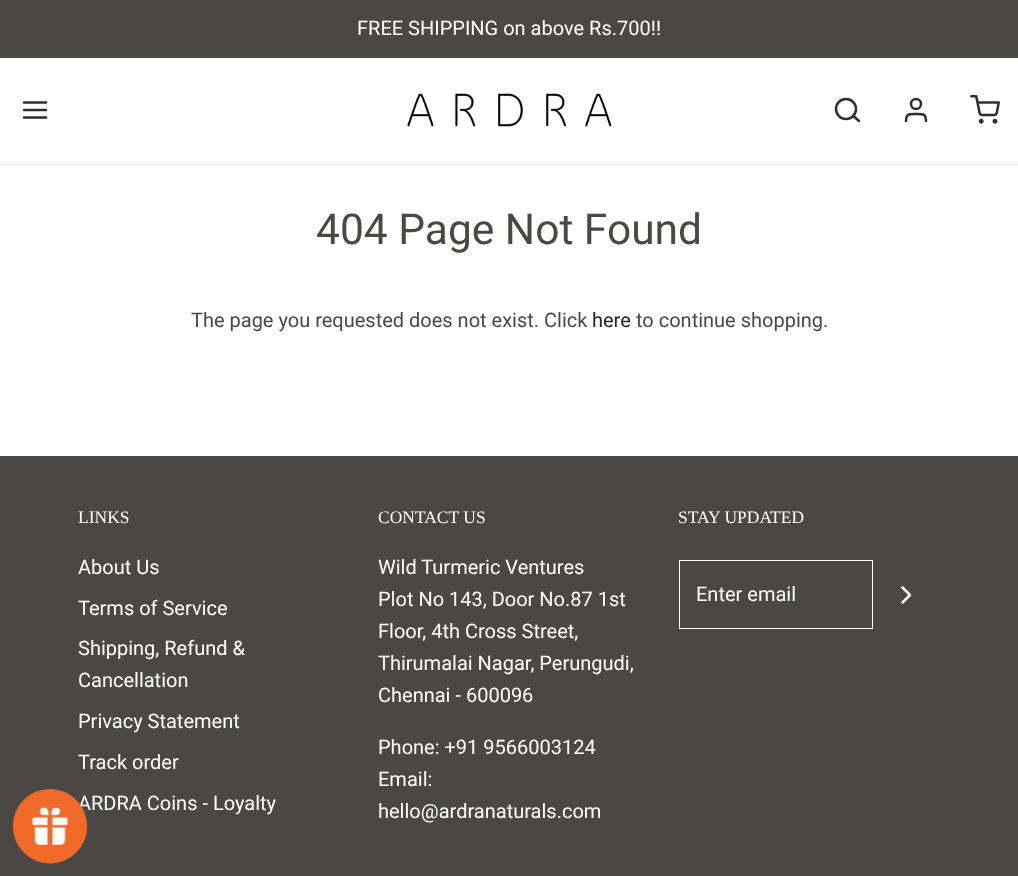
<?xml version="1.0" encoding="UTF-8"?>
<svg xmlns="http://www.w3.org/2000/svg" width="1018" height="876">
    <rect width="100%" height="100%" fill="#FFFFFF"/>
    <rect x="0" y="456" width="1018" height="420" fill="#494845"/>
    <text x="78" y="810" font-family="Roboto" font-size="20" fill="#FFFFFF">ARDRA Coins - Loyalty</text>
    <image x="12" y="788" width="76" height="76" href="img_01.png"/>
    <rect x="0" y="0" width="1018" height="58" fill="#494845"/>
    <text x="357" y="35" font-family="Roboto" font-size="20" fill="#FFFFFF">FREE SHIPPING on above Rs.700!!</text>
    <rect x="0" y="164" width="1018" height="1" fill="#EAEAEA"/>
    <path d="M 24 110 H 46 M 24 102.5 H 46 M 24 117.5 H 46" fill="none" stroke="#2E2E2E" stroke-width="2.5" stroke-linecap="round" stroke-linejoin="round"/>
    <image x="407" y="93" width="205" height="34" href="img_02.png"/>
    <circle cx="846" cy="109" r="10" fill="none" stroke="#2E2E2E" stroke-width="2.5"/>
    <path d="M 859 121 L 853.5 116" fill="none" stroke="#2E2E2E" stroke-width="2.5" stroke-linecap="round" stroke-linejoin="round"/>
    <path d="M 926 121 C 926 113.5 923 114 916 114 C 909.5 114 906 113.5 906 121" fill="none" stroke="#2E2E2E" stroke-width="2.5" stroke-linecap="round" stroke-linejoin="round"/>
    <circle cx="916" cy="104" r="5" fill="none" stroke="#2E2E2E" stroke-width="2.5"/>
    <image x="970" y="95" width="30" height="29" href="img_03.png"/>
    <text x="316" y="244" font-family="Roboto" font-size="42.5" fill="#494845">404 Page Not Found</text>
    <text x="191" y="327" font-family="Roboto" font-size="20" fill="#494845">The page you requested does not exist. Click</text>
    <text x="592" y="327" font-family="Roboto" font-size="20" fill="#242424">here</text>
    <text x="636" y="327" font-family="Roboto" font-size="20" fill="#494845">to continue shopping.</text>
    <text x="78" y="523" font-family="Liberation Serif" font-size="17.5" fill="#FFFFFF">LINKS</text>
    <text x="78" y="574" font-family="Roboto" font-size="20" fill="#FFFFFF">About Us</text>
    <text x="78" y="615" font-family="Roboto" font-size="20" fill="#FFFFFF">Terms of Service</text>
    <text font-family="Roboto" font-size="20" fill="#FFFFFF">
        <tspan x="78" y="655">Shipping, Refund &amp;</tspan>
        <tspan x="78" y="687">Cancellation</tspan>
    </text>
    <text x="78" y="728" font-family="Roboto" font-size="20" fill="#FFFFFF">Privacy Statement</text>
    <text x="78" y="769" font-family="Roboto" font-size="20" fill="#FFFFFF">Track order</text>
    <text x="378" y="523" font-family="Liberation Serif" font-size="17.5" fill="#FFFFFF">CONTACT US</text>
    <text font-family="Roboto" font-size="20" fill="#FFFFFF">
        <tspan x="378" y="574">Wild Turmeric Ventures</tspan>
        <tspan x="378" y="606">Plot No 143, Door No.87 1st</tspan>
        <tspan x="378" y="638">Floor, 4th Cross Street,</tspan>
        <tspan x="378" y="670">Thirumalai Nagar, Perungudi,</tspan>
        <tspan x="378" y="702">Chennai - 600096</tspan>
    </text>
    <text font-family="Roboto" font-size="20" fill="#FFFFFF">
        <tspan x="378" y="754">Phone: +91 9566003124</tspan>
        <tspan x="378" y="786">Email:</tspan>
        <tspan x="378" y="818">hello@ardranaturals.com</tspan>
    </text>
    <text x="678" y="523" font-family="Liberation Serif" font-size="17.5" fill="#FFFFFF">STAY UPDATED</text>
    <rect x="679.5" y="560.5" width="193" height="68" fill="none" stroke="#FFFFFF"/>
    <text x="696" y="601" font-family="Roboto" font-size="20" fill="#FFFFFF">Enter email</text>
    <path d="M 902.5 602.5 L 910 595 L 902.5 587.5" fill="none" stroke="#FFFFFF" stroke-width="2.5" stroke-linecap="round" stroke-linejoin="round"/>
</svg>
